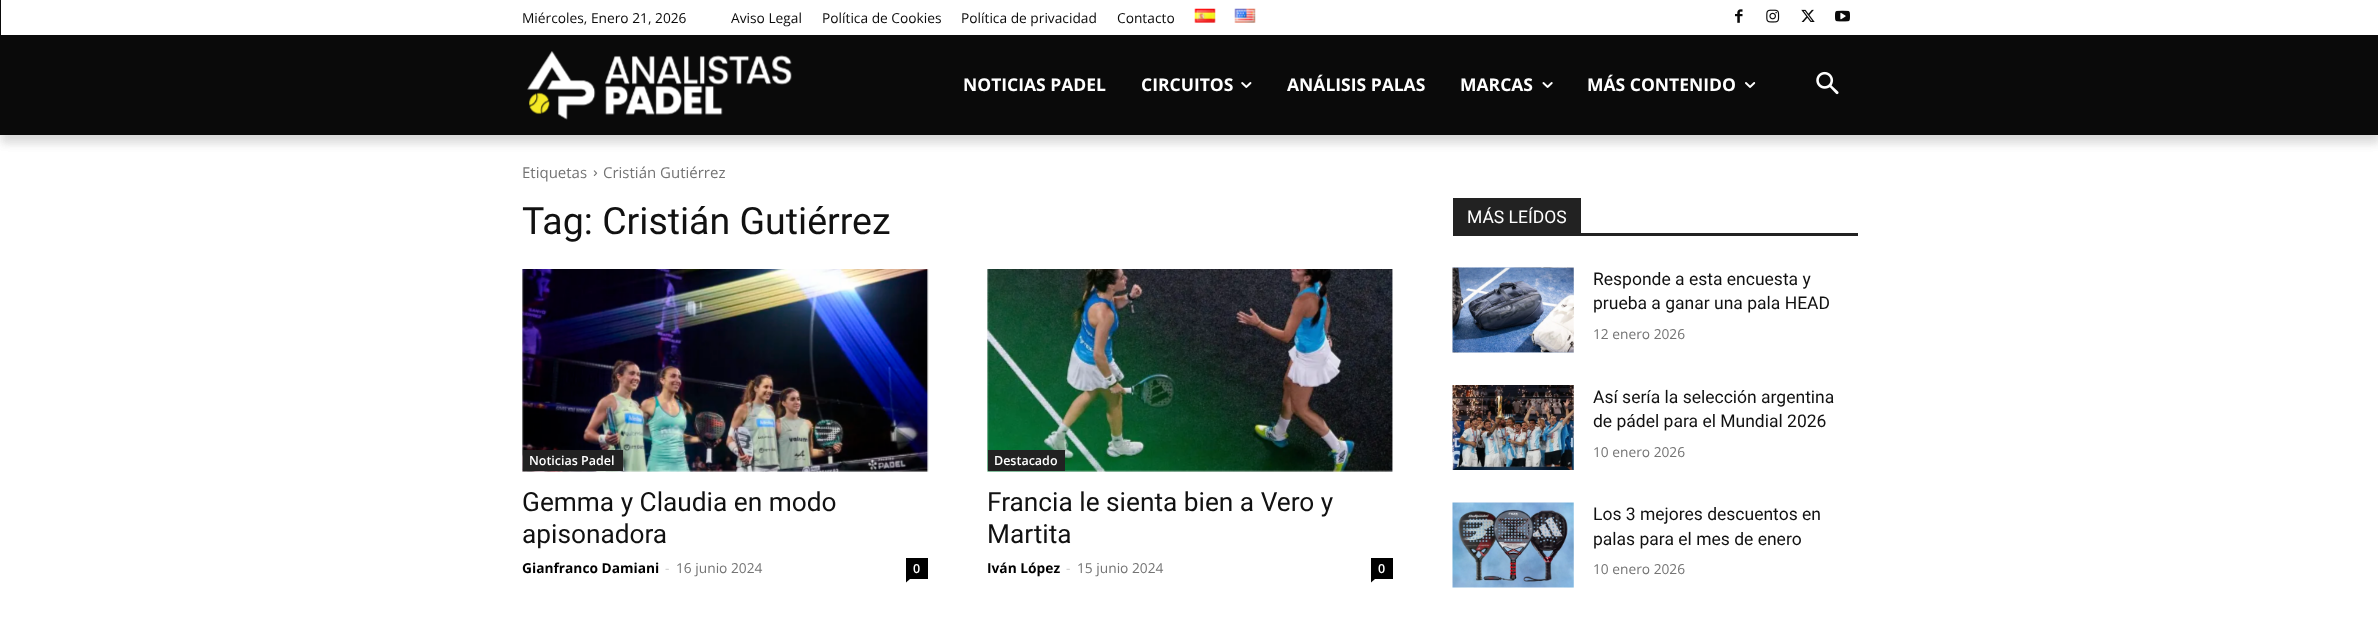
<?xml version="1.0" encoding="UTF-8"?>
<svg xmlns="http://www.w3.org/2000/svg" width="2378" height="618">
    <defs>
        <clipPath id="clip1"><path d="M 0 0 H 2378 V 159 H 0 Z M 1 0 H 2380 V 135 H 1 Z" clip-rule="evenodd"/></clipPath>
        <filter id="blur1" x="-50%" y="-200%" width="200%" height="500%"><feGaussianBlur stdDeviation="5"/></filter>
        <clipPath id="clip2"><path d="M 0 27 H 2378 V 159 H 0 Z M 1 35 H 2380 V 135 H 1 Z" clip-rule="evenodd"/></clipPath>
    </defs>
    <rect width="100%" height="100%" fill="#FFFFFF"/>
    <rect x="0" y="0" width="2378" height="135" fill="#0A0A0A"/>
    <rect x="1" y="0" width="2377" height="35" fill="#FFFFFF"/>
    <image x="1735" y="9" width="8" height="14" href="img_03.png"/>
    <image x="1766" y="9" width="14" height="14" href="img_04.png"/>
    <image x="1801" y="9" width="14" height="13" href="img_05.png"/>
    <image x="1835" y="10" width="15" height="12" href="img_06.png"/>
    <image x="527" y="51" width="265" height="69" href="img_07.png"/>
    <g clip-path="url(#clip1)">
        <rect x="1" y="8" width="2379" height="135" fill="#000000" fill-opacity="0.08" filter="url(#blur1)"/>
    </g>
    <text x="522" y="23" font-family="Open Sans" font-size="13.75" fill="#0A0A0A">Miércoles, Enero 21, 2026</text>
    <text x="731" y="23" font-family="Open Sans" font-size="13.75" fill="#0A0A0A">Aviso Legal</text>
    <text x="822" y="23" font-family="Open Sans" font-size="13.75" fill="#0A0A0A">Política de Cookies</text>
    <text x="961" y="23" font-family="Open Sans" font-size="13.75" fill="#0A0A0A">Política de privacidad</text>
    <text x="1117" y="23" font-family="Open Sans" font-size="13.75" fill="#0A0A0A">Contacto</text>
    <image x="1194" y="8" width="22" height="15" href="img_01.png"/>
    <image x="1234" y="8" width="22" height="15" href="img_02.png"/>
    <g clip-path="url(#clip2)">
        <rect x="1" y="43" width="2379" height="100" fill="#000000" fill-opacity="0.08" filter="url(#blur1)"/>
    </g>
    <text x="963" y="91" font-family="Open Sans" font-size="17.5" font-weight="700" fill="#FFFFFF">NOTICIAS PADEL</text>
    <text x="1141" y="91" font-family="Open Sans" font-size="17.5" font-weight="700" fill="#FFFFFF">CIRCUITOS</text>
    <image x="1241" y="82" width="11" height="6" href="img_08.png"/>
    <text x="1287" y="91" font-family="Open Sans" font-size="17.5" font-weight="700" fill="#FFFFFF">ANÁLISIS PALAS</text>
    <text x="1460" y="91" font-family="Open Sans" font-size="17.5" font-weight="700" fill="#FFFFFF">MARCAS</text>
    <image x="1542" y="82" width="11" height="6" href="img_09.png"/>
    <text x="1587" y="91" font-family="Open Sans" font-size="17.5" font-weight="700" fill="#FFFFFF">MÁS CONTENIDO</text>
    <image x="1745" y="82" width="11" height="6" href="img_10.png"/>
    <image x="1816" y="71" width="23" height="24" href="img_11.png"/>
    <text x="522" y="178" font-family="Open Sans" font-size="15" fill="#747474">Etiquetas</text>
    <image x="593" y="170" width="5" height="7" href="img_12.png"/>
    <text x="603" y="178" font-family="Open Sans" font-size="15" fill="#747474">Cristián Gutiérrez</text>
    <text x="522" y="234" font-family="Roboto" font-size="37.5" fill="#111111">Tag: Cristián Gutiérrez</text>
    <image x="522" y="269" width="407" height="203" href="img_13.png"/>
    <rect x="523" y="450" width="100" height="21" fill="#222222"/>
    <text x="529" y="465" font-family="Open Sans" font-size="12.5" font-weight="600" fill="#FFFFFF">Noticias Padel</text>
    <text font-family="Roboto" font-size="26.25" fill="#111111">
        <tspan x="522" y="511">Gemma y Claudia en modo</tspan>
        <tspan x="522" y="543">apisonadora</tspan>
    </text>
    <text x="522" y="573" font-family="Open Sans" font-size="13.75" font-weight="700" fill="#000000">Gianfranco Damiani</text>
    <text x="665" y="573" font-family="Open Sans" font-size="13.75" fill="#CCCCCC">-</text>
    <text x="676" y="573" font-family="Open Sans" font-size="13.75" fill="#747474">16 junio 2024</text>
    <rect x="906" y="558" width="22" height="21" fill="#000000"/>
    <text x="913" y="573" font-family="Open Sans" font-size="12.5" font-weight="600" fill="#FFFFFF">0</text>
    <path d="M 906 579 H 910 L 906 582.5 Z" fill="#000000"/>
    <image x="987" y="269" width="406" height="203" href="img_14.png"/>
    <rect x="988" y="450" width="77" height="21" fill="#222222"/>
    <text x="994" y="465" font-family="Open Sans" font-size="12.5" font-weight="600" fill="#FFFFFF">Destacado</text>
    <text font-family="Roboto" font-size="26.25" fill="#111111">
        <tspan x="987" y="511">Francia le sienta bien a Vero y</tspan>
        <tspan x="987" y="543">Martita</tspan>
    </text>
    <text x="987" y="573" font-family="Open Sans" font-size="13.75" font-weight="700" fill="#000000">Iván López</text>
    <text x="1066" y="573" font-family="Open Sans" font-size="13.75" fill="#CCCCCC">-</text>
    <text x="1077" y="573" font-family="Open Sans" font-size="13.75" fill="#747474">15 junio 2024</text>
    <rect x="1371" y="558" width="22" height="21" fill="#000000"/>
    <text x="1378" y="573" font-family="Open Sans" font-size="12.5" font-weight="600" fill="#FFFFFF">0</text>
    <path d="M 1371 579 H 1375 L 1371 582.5 Z" fill="#000000"/>
    <rect x="1453" y="233" width="405" height="3" fill="#222222"/>
    <rect x="1453" y="198" width="128" height="35" fill="#222222"/>
    <text x="1467" y="223" font-family="Roboto" font-size="17.5" fill="#FFFFFF">MÁS LEÍDOS</text>
    <image x="1452" y="267" width="122" height="86" href="img_15.png"/>
    <text font-family="Roboto" font-size="17.5" fill="#111111">
        <tspan x="1593" y="285">Responde a esta encuesta y</tspan>
        <tspan x="1593" y="309">prueba a ganar una pala HEAD</tspan>
    </text>
    <text x="1593" y="339" font-family="Open Sans" font-size="13.75" fill="#747474">12 enero 2026</text>
    <image x="1452" y="385" width="122" height="85" href="img_16.png"/>
    <text font-family="Roboto" font-size="17.5" fill="#111111">
        <tspan x="1593" y="403">Así sería la selección argentina</tspan>
        <tspan x="1593" y="427">de pádel para el Mundial 2026</tspan>
    </text>
    <text x="1593" y="457" font-family="Open Sans" font-size="13.75" fill="#747474">10 enero 2026</text>
    <image x="1452" y="502" width="122" height="86" href="img_17.png"/>
    <text font-family="Roboto" font-size="17.5" fill="#111111">
        <tspan x="1593" y="520">Los 3 mejores descuentos en</tspan>
        <tspan x="1593" y="545">palas para el mes de enero</tspan>
    </text>
    <text x="1593" y="574" font-family="Open Sans" font-size="13.75" fill="#747474">10 enero 2026</text>
</svg>
